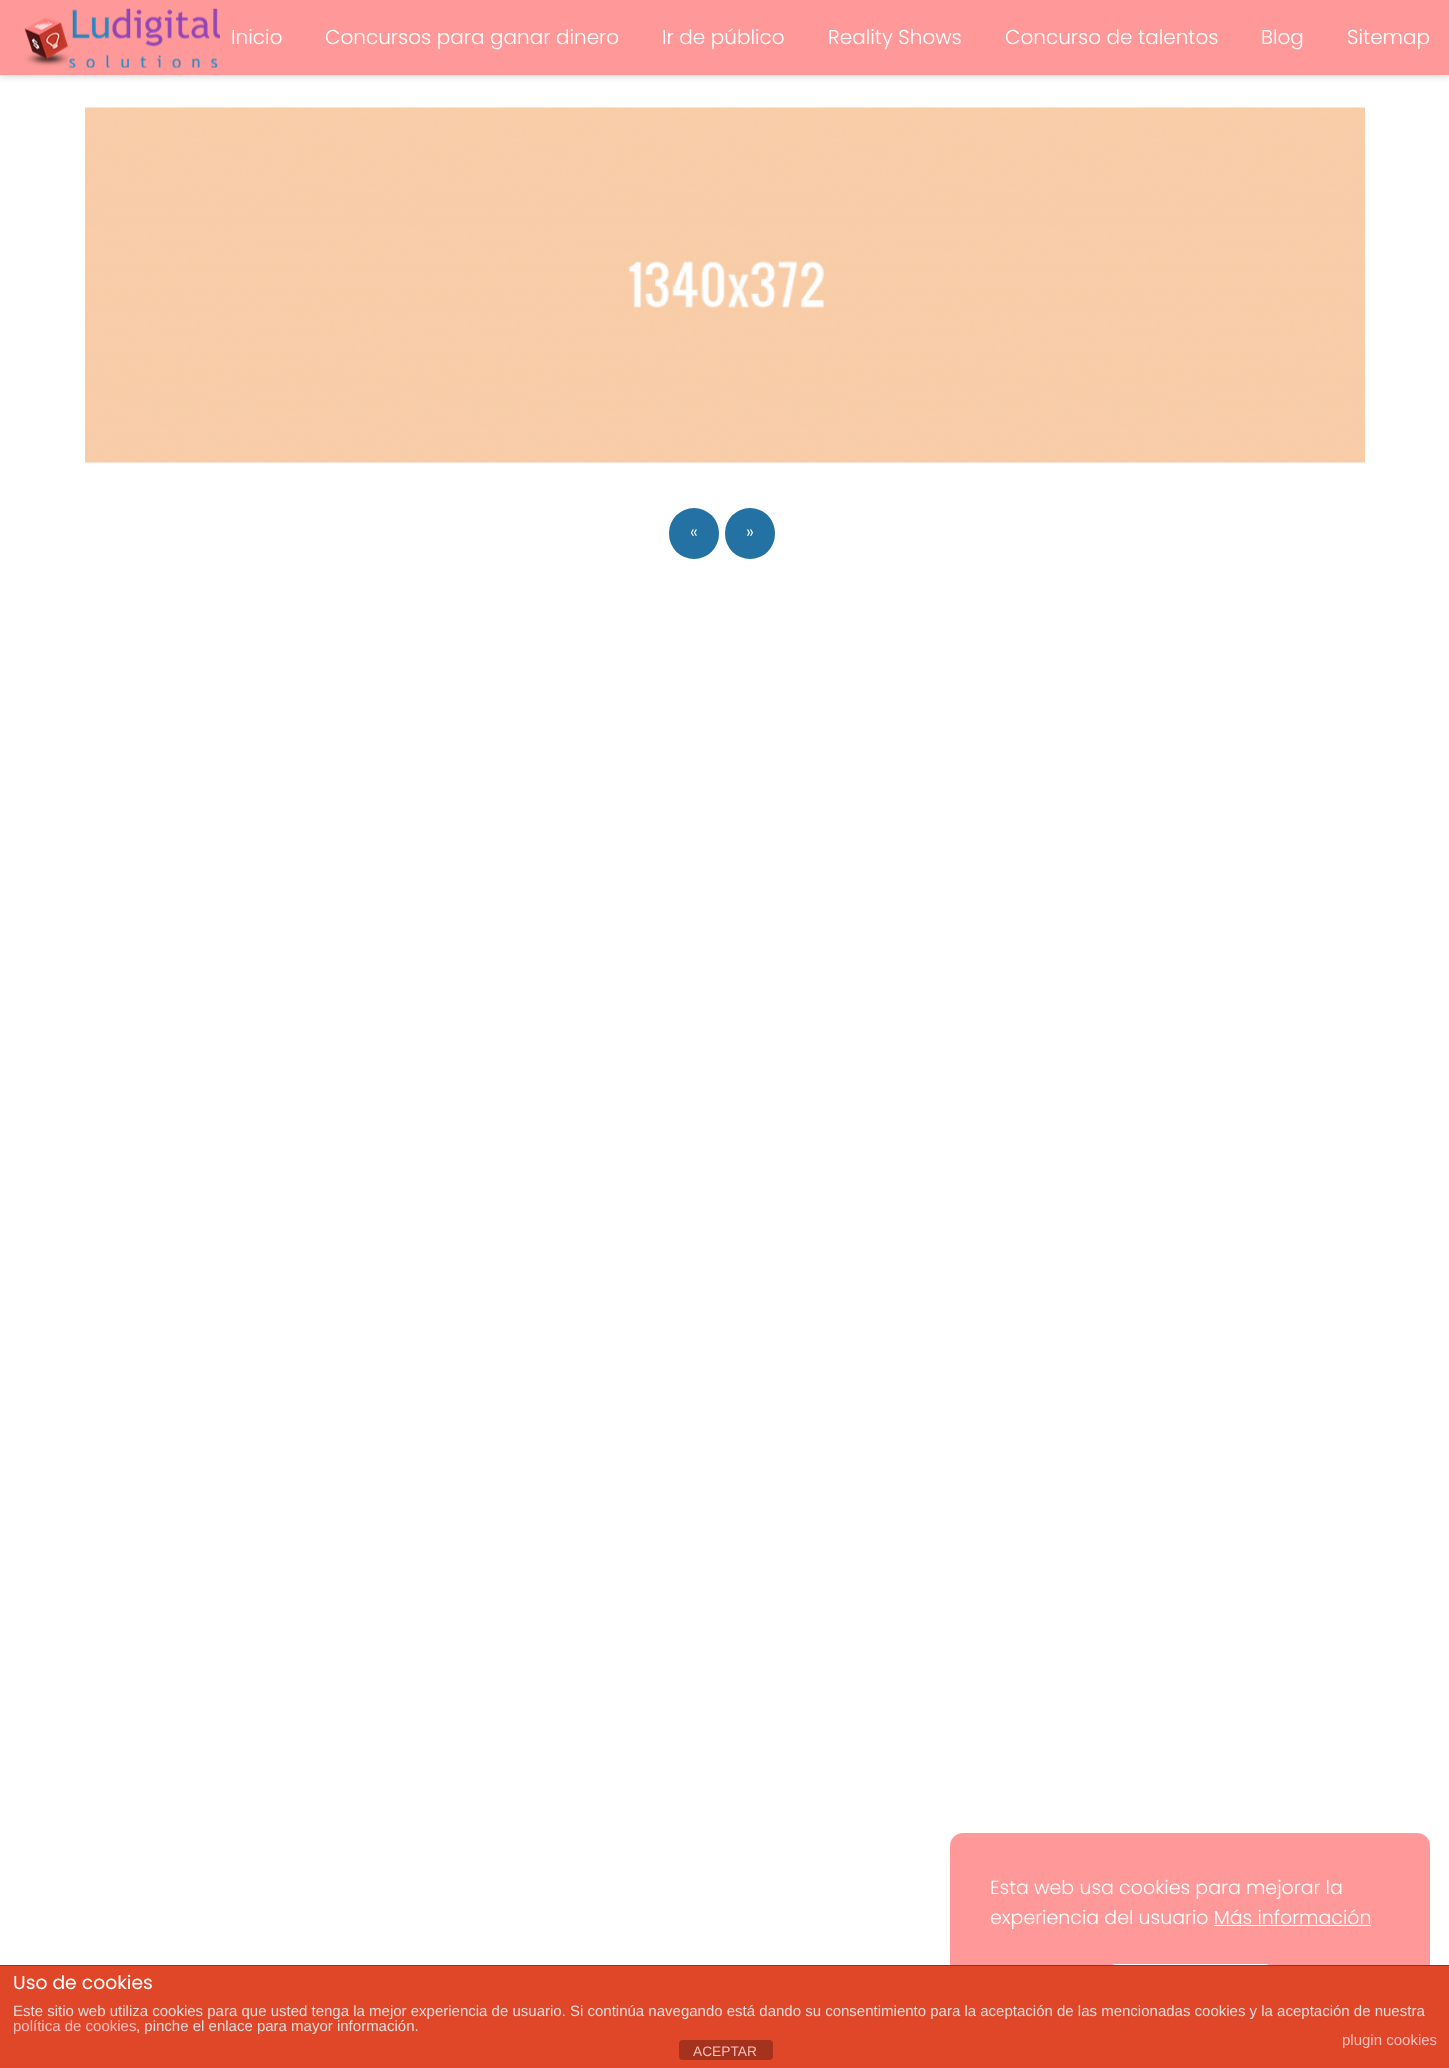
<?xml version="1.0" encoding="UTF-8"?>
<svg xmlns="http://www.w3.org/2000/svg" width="1449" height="2068">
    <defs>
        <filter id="blur1" x="-50%" y="-200%" width="200%" height="500%"><feGaussianBlur stdDeviation="2.5"/></filter>
    </defs>
    <rect width="100%" height="100%" fill="#FFFFFF"/>
    <rect x="0" y="3" width="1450" height="75" fill="#000000" fill-opacity="0.1" filter="url(#blur1)"/>
    <rect x="0" y="0" width="1449" height="75" fill="#FF9999"/>
    <image x="24" y="8" width="196" height="60" href="img_01.png"/>
    <text x="231" y="44" font-family="Poppins" font-size="20" font-weight="300" fill="#FFFFFF">Inicio</text>
    <text x="325" y="44" font-family="Poppins" font-size="20" font-weight="300" fill="#FFFFFF">Concursos para ganar dinero</text>
    <text x="662" y="44" font-family="Poppins" font-size="20" font-weight="300" fill="#FFFFFF">Ir de público</text>
    <text x="828" y="44" font-family="Poppins" font-size="20" font-weight="300" fill="#FFFFFF">Reality Shows</text>
    <text x="1005" y="44" font-family="Poppins" font-size="20" font-weight="300" fill="#FFFFFF">Concurso de talentos</text>
    <text x="1261" y="44" font-family="Poppins" font-size="20" font-weight="300" fill="#FFFFFF">Blog</text>
    <text x="1347" y="44" font-family="Poppins" font-size="20" font-weight="300" fill="#FFFFFF">Sitemap</text>
    <image x="85" y="107" width="1280" height="356" href="img_02.png"/>
    <rect x="669" y="508" width="50" height="51" rx="25" fill="#2471A3"/>
    <text x="690" y="538" font-family="Poppins" font-size="18" font-weight="300" fill="#FFFFFF">«</text>
    <rect x="725" y="508" width="50" height="51" rx="25" fill="#2471A3"/>
    <text x="746" y="538" font-family="Poppins" font-size="18" font-weight="300" fill="#FFFFFF">»</text>
    <rect x="950" y="1833" width="480" height="216" rx="13" fill="#FF9999"/>
    <text font-family="Poppins" font-size="19" font-weight="300" fill="#FFFFFF">
        <tspan x="990" y="1894">Esta web usa cookies para mejorar la</tspan>
        <tspan x="990" y="1924">experiencia del usuario Más información</tspan>
    </text>
    <rect x="1214" y="1925" width="157" height="1" fill="#FFFFFF"/>
    <rect x="1108" y="1964" width="165" height="45" rx="8" fill="#FFFFFF"/>
    <rect x="0" y="1966" width="1449" height="102" fill="#E04729"/>
    <rect x="0" y="1965" width="1449" height="1" fill="#99301B"/>
    <text x="13" y="1989" font-family="Poppins" font-size="18.75" fill="#FFFFFF">Uso de cookies</text>
    <text x="13" y="2016" font-family="Liberation Sans" font-size="15" fill="#DDDDDD">Este sitio web utiliza cookies para que usted tenga la mejor experiencia de usuario. Si continúa navegando está dando su consentimiento para la aceptación de las mencionadas cookies y la aceptación de nuestra</text>
    <text x="13" y="2031" font-family="Liberation Sans" font-size="15" fill="#FEBEBE">política de cookies</text>
    <text x="136" y="2031" font-family="Liberation Sans" font-size="15" fill="#DDDDDD">, pinche el enlace para mayor información.</text>
    <text x="1342" y="2045" font-family="Liberation Sans" font-size="15" fill="#FEBEBE">plugin cookies</text>
    <rect x="679" y="2040" width="94" height="20" rx="4" fill="#A5321C"/>
    <text x="693" y="2056" font-family="Liberation Sans" font-size="13.75" fill="#FEBEBE">ACEPTAR</text>
</svg>
